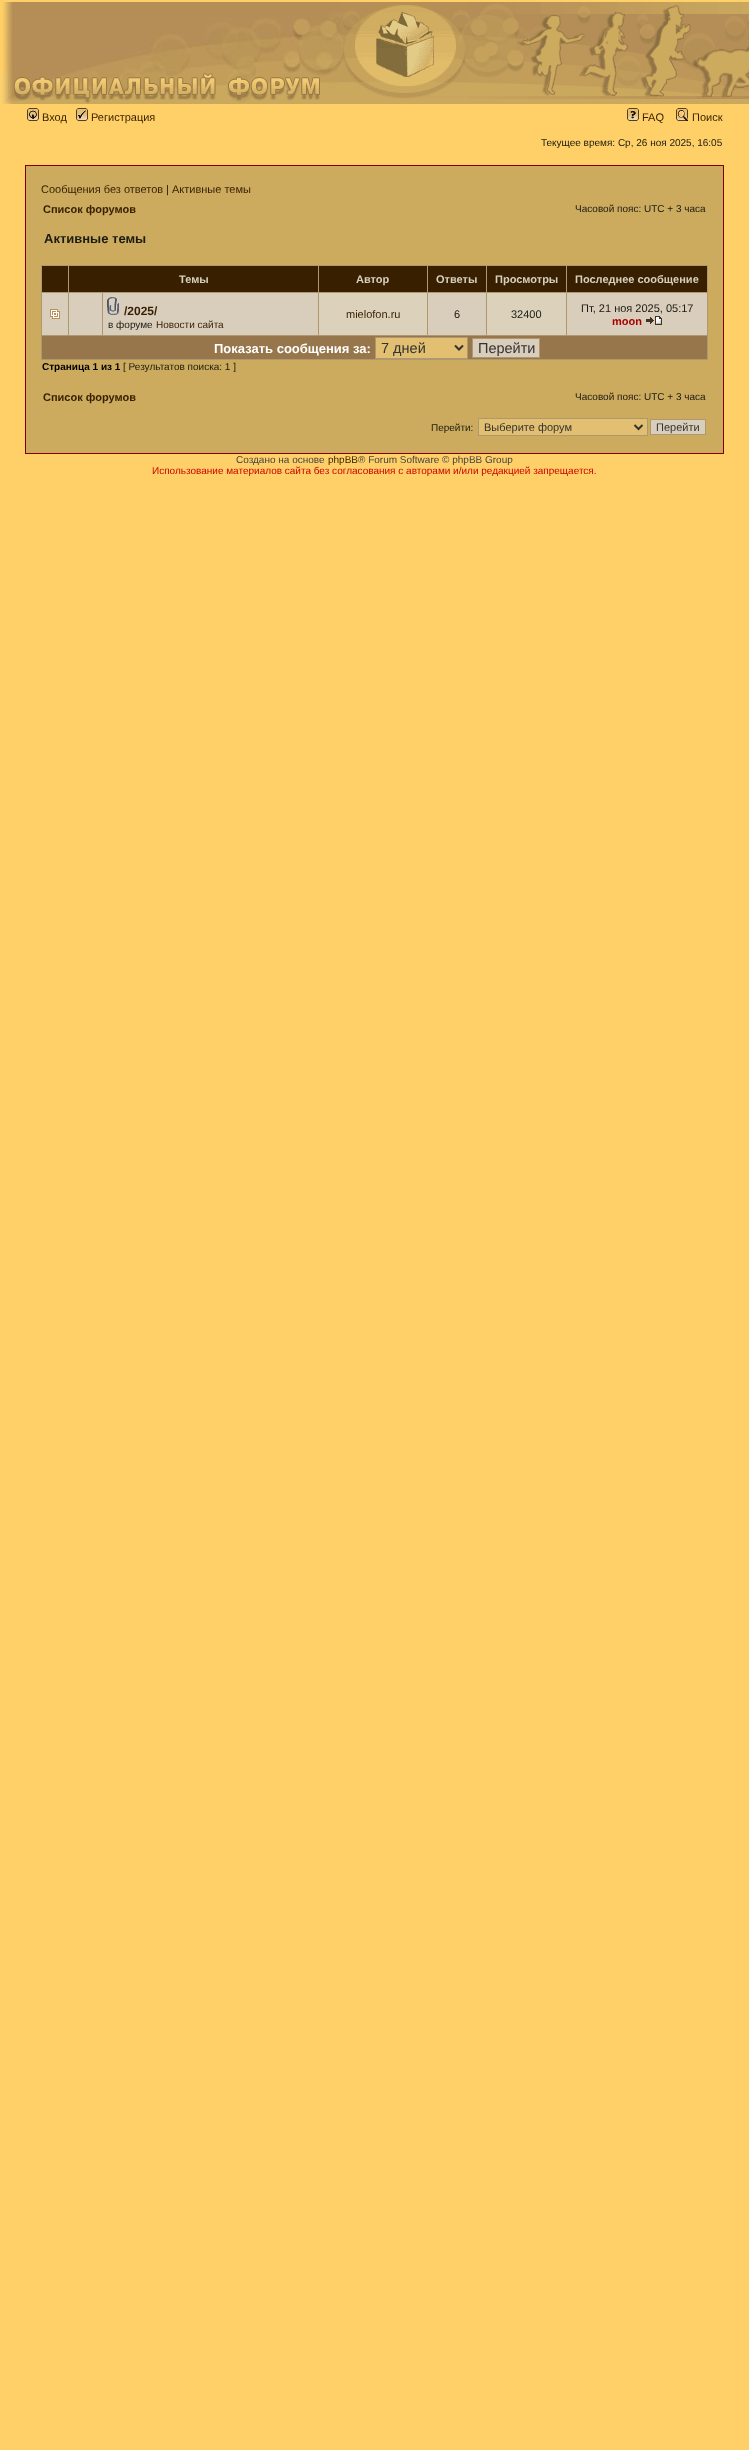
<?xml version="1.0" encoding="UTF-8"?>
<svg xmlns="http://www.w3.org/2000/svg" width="749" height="2450">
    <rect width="100%" height="100%" fill="#FFD068"/>
    <image x="2" y="2" width="747" height="102" href="img_01.png"/>
    <image x="27" y="108" width="12" height="13" href="img_02.png"/>
    <text x="42" y="121" font-family="Liberation Sans" font-size="11" fill="#361F00">Вход</text>
    <image x="76" y="108" width="12" height="13" href="img_03.png"/>
    <text x="91" y="121" font-family="Liberation Sans" font-size="11" fill="#361F00">Регистрация</text>
    <image x="627" y="108" width="12" height="13" href="img_04.png"/>
    <text x="642" y="121" font-family="Liberation Sans" font-size="11" fill="#361F00">FAQ</text>
    <image x="676" y="108" width="12" height="13" href="img_05.png"/>
    <text x="692" y="121" font-family="Liberation Sans" font-size="11" fill="#361F00">Поиск</text>
    <text x="541" y="146" font-family="Liberation Sans" font-size="10" fill="#1C1B12">Текущее время: Ср, 26 ноя 2025, 16:05</text>
    <rect x="25.5" y="165.5" width="698" height="288" fill="#CCAA5E" stroke="#800000"/>
    <text x="41" y="193" font-family="Liberation Sans" font-size="11" fill="#361F00">Сообщения без ответов</text>
    <text x="166" y="193" font-family="Liberation Sans" font-size="11" fill="#1C1B12">|</text>
    <text x="172" y="193" font-family="Liberation Sans" font-size="11" fill="#361F00">Активные темы</text>
    <text x="43" y="213" font-family="Liberation Sans" font-size="11" font-weight="700" fill="#361F00">Список форумов</text>
    <text x="575" y="212" font-family="Liberation Sans" font-size="10" fill="#1C1B12">Часовой пояс: UTC + 3 часа</text>
    <text x="44" y="243" font-family="Liberation Sans" font-size="13" font-weight="700" fill="#1C1B12">Активные темы</text>
    <rect x="41" y="265" width="667" height="95" fill="#AE9870"/>
    <rect x="42" y="266" width="26" height="26" fill="#381F00"/>
    <rect x="69" y="266" width="249" height="26" fill="#381F00"/>
    <text x="179" y="283" font-family="Liberation Sans" font-size="11" font-weight="700" fill="#D5D1BF">Темы</text>
    <rect x="319" y="266" width="108" height="26" fill="#381F00"/>
    <text x="356" y="283" font-family="Liberation Sans" font-size="11" font-weight="700" fill="#D5D1BF">Автор</text>
    <rect x="428" y="266" width="58" height="26" fill="#381F00"/>
    <text x="436" y="283" font-family="Liberation Sans" font-size="11" font-weight="700" fill="#D5D1BF">Ответы</text>
    <rect x="487" y="266" width="79" height="26" fill="#381F00"/>
    <text x="495" y="283" font-family="Liberation Sans" font-size="11" font-weight="700" fill="#D5D1BF">Просмотры</text>
    <rect x="567" y="266" width="140" height="26" fill="#381F00"/>
    <text x="575" y="283" font-family="Liberation Sans" font-size="11" font-weight="700" fill="#D5D1BF">Последнее сообщение</text>
    <rect x="42" y="293" width="26" height="42" fill="#D9CDBB"/>
    <image x="50" y="309" width="10" height="10" href="img_06.png"/>
    <rect x="69" y="293" width="33" height="42" fill="#D9CDBB"/>
    <rect x="103" y="293" width="215" height="42" fill="#D9CDBB"/>
    <image x="107" y="297" width="12" height="18" href="img_07.png"/>
    <text x="124" y="315" font-family="Liberation Sans" font-size="12" font-weight="700" fill="#361F00">/2025/</text>
    <text x="108" y="328" font-family="Liberation Sans" font-size="10" fill="#1C1B12">в форуме</text>
    <text x="156" y="328" font-family="Liberation Sans" font-size="10" fill="#361F00">Новости сайта</text>
    <rect x="319" y="293" width="108" height="42" fill="#DCD2BC"/>
    <text x="346" y="318" font-family="Liberation Sans" font-size="11" fill="#361F00">mielofon.ru</text>
    <rect x="428" y="293" width="58" height="42" fill="#D9CDBB"/>
    <text x="454" y="318" font-family="Liberation Sans" font-size="11" fill="#1C1B12">6</text>
    <rect x="487" y="293" width="79" height="42" fill="#DCD2BC"/>
    <text x="511" y="318" font-family="Liberation Sans" font-size="11" fill="#1C1B12">32400</text>
    <rect x="567" y="293" width="140" height="42" fill="#D9CDBB"/>
    <text x="581" y="312" font-family="Liberation Sans" font-size="11" fill="#1C1B12">Пт, 21 ноя 2025, 05:17</text>
    <text x="612" y="325" font-family="Liberation Sans" font-size="11" font-weight="700" fill="#AA0000">moon</text>
    <image x="646" y="316" width="16" height="9" href="img_08.png"/>
    <rect x="42" y="336" width="665" height="23" fill="#97764B"/>
    <text x="214" y="353" font-family="Liberation Sans" font-size="13" font-weight="700" fill="#FFFFFF">Показать сообщения за:</text>
    <rect x="375.5" y="337.5" width="92" height="21" fill="#E3C071" stroke="#AE9870"/>
    <path d="M 455 345.5 L 459 349.5 L 463 345.5" fill="none" stroke="#333333" stroke-width="2"/>
    <text x="381" y="353" font-family="Liberation Sans" font-size="14.5" fill="#333333">7 дней</text>
    <rect x="472.5" y="338.5" width="67" height="19" fill="#D9CDBB" stroke="#AE9870"/>
    <text x="478" y="353" font-family="Liberation Sans" font-size="14.5" fill="#333333">Перейти</text>
    <text x="42" y="370" font-family="Liberation Sans" font-size="10" font-weight="700" fill="#000000">Страница 1 из 1</text>
    <text x="123" y="370" font-family="Liberation Sans" font-size="10" fill="#1C1B12">[ Результатов поиска: 1 ]</text>
    <text x="43" y="401" font-family="Liberation Sans" font-size="11" font-weight="700" fill="#361F00">Список форумов</text>
    <text x="575" y="400" font-family="Liberation Sans" font-size="10" fill="#1C1B12">Часовой пояс: UTC + 3 часа</text>
    <text x="431" y="431" font-family="Liberation Sans" font-size="10" fill="#1C1B12">Перейти:</text>
    <rect x="478.5" y="418.5" width="169" height="17" fill="#E3C071" stroke="#AE9870"/>
    <path d="M 634.5 425 L 638.5 429 L 642.5 425" fill="none" stroke="#333333" stroke-width="2"/>
    <text x="484" y="431" font-family="Liberation Sans" font-size="11" fill="#333333">Выберите форум</text>
    <rect x="650.5" y="419.5" width="55" height="15" fill="#D9CDBB" stroke="#AE9870"/>
    <text x="656" y="431" font-family="Liberation Sans" font-size="11" fill="#333333">Перейти</text>
    <text x="236" y="463" font-family="Liberation Sans" font-size="10" fill="#444444">Создано на основе</text>
    <text x="328" y="463" font-family="Liberation Sans" font-size="10" fill="#361F00">phpBB</text>
    <text x="358" y="463" font-family="Liberation Sans" font-size="10" fill="#444444">® Forum Software © phpBB Group</text>
    <text x="152" y="474" font-family="Liberation Sans" font-size="10" fill="#CC0000">Использование материалов сайта без согласования с авторами и/или редакцией запрещается.</text>
</svg>
